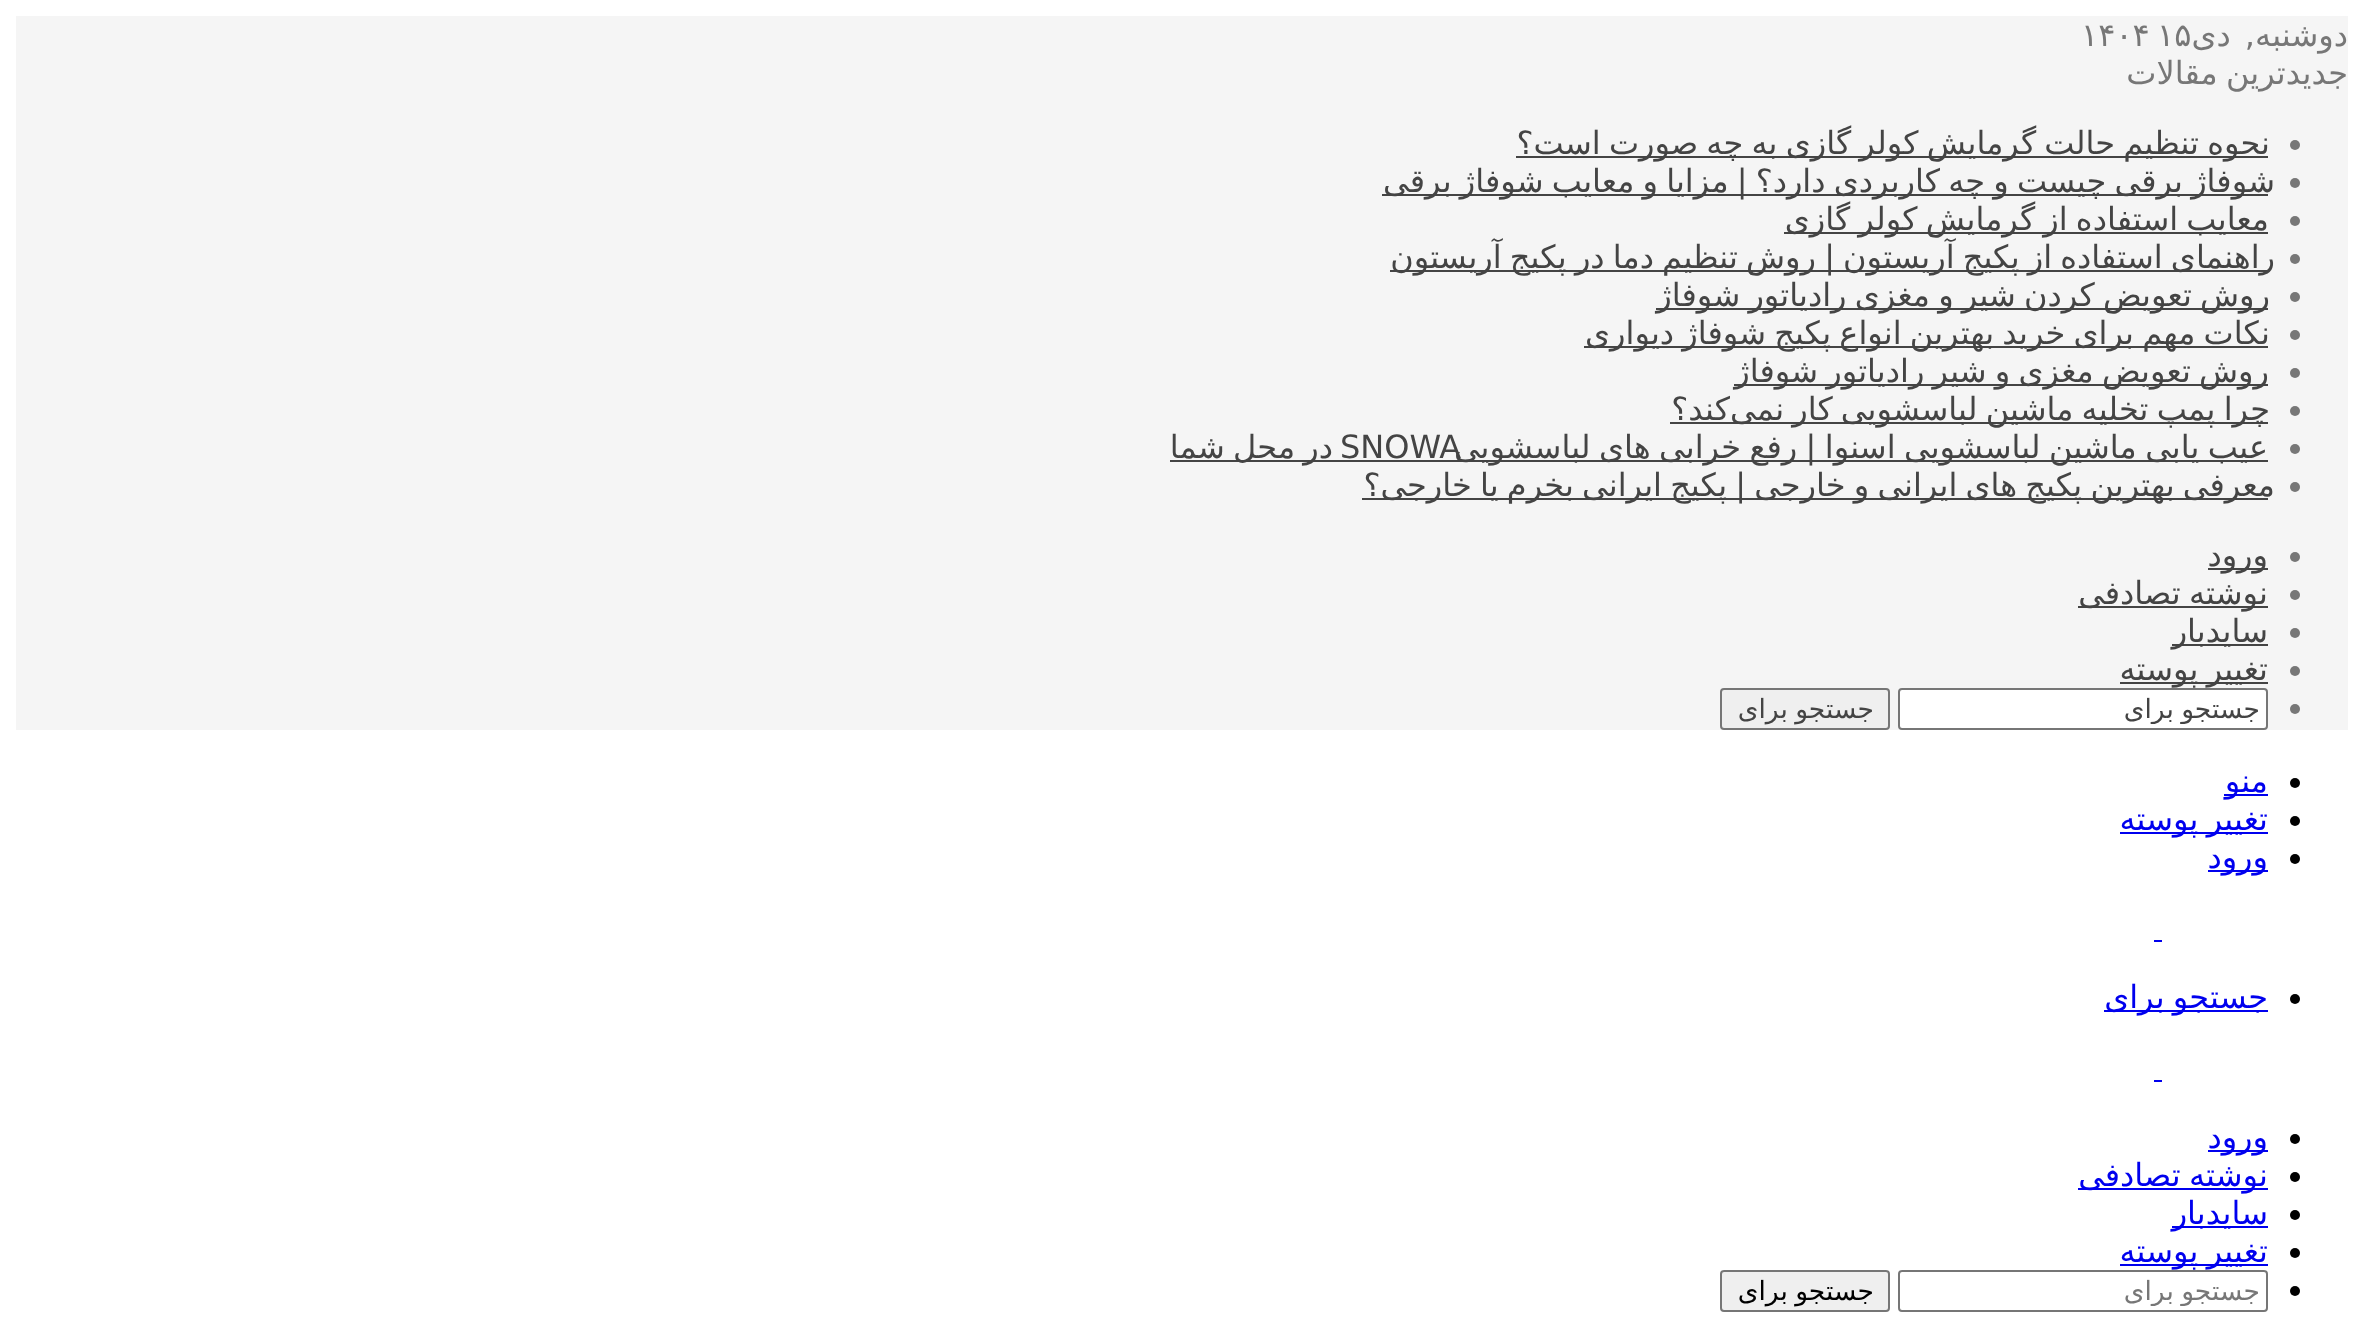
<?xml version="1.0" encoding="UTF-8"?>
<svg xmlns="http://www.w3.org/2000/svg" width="2364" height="1330">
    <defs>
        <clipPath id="clip1"><rect x="1906" y="694" width="354" height="30"/></clipPath>
        <clipPath id="clip2"><rect x="1906" y="1276" width="354" height="30"/></clipPath>
    </defs>
    <rect width="100%" height="100%" fill="#FFFFFF"/>
    <rect x="16" y="16" width="2332" height="714" fill="#F5F5F5"/>
    <text x="2348" y="46" word-spacing="4" font-family="DejaVu Sans" font-size="32" direction="rtl" fill="#777777">دوشنبه, دی</text>
    <text x="2157" y="46" font-family="DejaVu Sans" font-size="32" fill="#777777">۱۵</text>
    <text x="2081" y="46" font-family="DejaVu Sans" font-size="32" fill="#777777">۱۴۰۴</text>
    <text x="2348" y="84" word-spacing="-2" font-family="DejaVu Sans" font-size="32" direction="rtl" fill="#777777">جدیدترین مقالات</text>
    <circle cx="2295" cy="145" r="5" fill="#777777"/>
    <rect x="1516" y="156" width="752" height="2" fill="#444444"/>
    <text x="2270" y="154" word-spacing="-2" font-family="DejaVu Sans" font-size="32" direction="rtl" fill="#444444">نحوه تنظیم حالت گرمایش کولر گازی به چه صورت است؟</text>
    <circle cx="2295" cy="183" r="5" fill="#777777"/>
    <rect x="1382" y="194" width="886" height="2" fill="#444444"/>
    <text x="2275" y="192" word-spacing="-2" font-family="DejaVu Sans" font-size="32" direction="rtl" fill="#444444">شوفاژ برقی چیست و چه کاربردی دارد؟ | مزایا و معایب شوفاژ برقی</text>
    <circle cx="2295" cy="221" r="5" fill="#777777"/>
    <rect x="1784" y="232" width="484" height="2" fill="#444444"/>
    <text x="2269" y="230" word-spacing="-2" font-family="DejaVu Sans" font-size="32" direction="rtl" fill="#444444">معایب استفاده از گرمایش کولر گازی</text>
    <circle cx="2295" cy="259" r="5" fill="#777777"/>
    <rect x="1390" y="270" width="878" height="2" fill="#444444"/>
    <text x="2275" y="268" word-spacing="-2" font-family="DejaVu Sans" font-size="32" direction="rtl" fill="#444444">راهنمای استفاده از پکیج آریستون | روش تنظیم دما در پکیج آریستون</text>
    <circle cx="2295" cy="297" r="5" fill="#777777"/>
    <rect x="1656" y="308" width="612" height="2" fill="#444444"/>
    <text x="2270" y="306" word-spacing="-2" font-family="DejaVu Sans" font-size="32" direction="rtl" fill="#444444">روش تعویض کردن شیر و مغزی رادیاتور شوفاژ</text>
    <circle cx="2295" cy="335" r="5" fill="#777777"/>
    <rect x="1584" y="346" width="684" height="2" fill="#444444"/>
    <text x="2270" y="344" word-spacing="-2" font-family="DejaVu Sans" font-size="32" direction="rtl" fill="#444444">نکات مهم برای خرید بهترین انواع پکیج شوفاژ دیواری</text>
    <circle cx="2295" cy="373" r="5" fill="#777777"/>
    <rect x="1734" y="384" width="534" height="2" fill="#444444"/>
    <text x="2269" y="382" word-spacing="-2" font-family="DejaVu Sans" font-size="32" direction="rtl" fill="#444444">روش تعویض مغزی و شیر رادیاتور شوفاژ</text>
    <circle cx="2295" cy="411" r="5" fill="#777777"/>
    <rect x="1670" y="422" width="598" height="2" fill="#444444"/>
    <text x="2270" y="420" word-spacing="-2" font-family="DejaVu Sans" font-size="32" direction="rtl" fill="#444444">چرا پمپ تخلیه ماشین لباسشویی کار نمی‌کند؟</text>
    <circle cx="2295" cy="449" r="5" fill="#777777"/>
    <text x="1340" y="458" font-family="DejaVu Sans" font-size="32" fill="#444444">SNOWA</text>
    <rect x="1170" y="460" width="1098" height="2" fill="#444444"/>
    <text x="2268" y="458" word-spacing="-1.75" font-family="DejaVu Sans" font-size="32" direction="rtl" fill="#444444">عیب یابی ماشین لباسشویی اسنوا | رفع خرابی های لباسشویی</text>
    <text x="1333" y="458" word-spacing="-2" font-family="DejaVu Sans" font-size="32" direction="rtl" fill="#444444">در محل شما</text>
    <circle cx="2295" cy="487" r="5" fill="#777777"/>
    <rect x="1362" y="498" width="906" height="2" fill="#444444"/>
    <text x="2275" y="496" word-spacing="-2" font-family="DejaVu Sans" font-size="32" direction="rtl" fill="#444444">معرفی بهترین پکیج های ایرانی و خارجی | پکیج ایرانی بخرم یا خارجی؟</text>
    <circle cx="2295" cy="557" r="5" fill="#777777"/>
    <rect x="2208" y="568" width="60" height="2" fill="#444444"/>
    <text x="2268" y="566" font-family="DejaVu Sans" font-size="32" direction="rtl" fill="#444444">ورود</text>
    <circle cx="2295" cy="595" r="5" fill="#777777"/>
    <rect x="2078" y="606" width="190" height="2" fill="#444444"/>
    <text x="2268" y="604" word-spacing="-2" font-family="DejaVu Sans" font-size="32" direction="rtl" fill="#444444">نوشته تصادفی</text>
    <circle cx="2295" cy="633" r="5" fill="#777777"/>
    <rect x="2172" y="644" width="96" height="2" fill="#444444"/>
    <text x="2268" y="642" font-family="DejaVu Sans" font-size="32" direction="rtl" fill="#444444">سایدبار</text>
    <circle cx="2295" cy="671" r="5" fill="#777777"/>
    <rect x="2120" y="682" width="148" height="2" fill="#444444"/>
    <text x="2268" y="680" word-spacing="-2" font-family="DejaVu Sans" font-size="32" direction="rtl" fill="#444444">تغییر پوسته</text>
    <circle cx="2295" cy="709" r="5" fill="#777777"/>
    <rect x="1899" y="689" width="368" height="40" rx="3" fill="#FFFFFF" stroke="#767676" stroke-width="2"/>
    <g clip-path="url(#clip1)">
        <text x="2260" y="718" word-spacing="-1" font-family="DejaVu Sans" font-size="26.5" direction="rtl" fill="#444444">جستجو برای</text>
    </g>
    <rect x="1721" y="689" width="168" height="40" rx="3" fill="#EFEFEF" stroke="#767676" stroke-width="2"/>
    <text x="1874" y="718" word-spacing="-1" font-family="DejaVu Sans" font-size="26.5" direction="rtl" fill="#444444">جستجو برای</text>
    <circle cx="2295" cy="783" r="5" fill="#000000"/>
    <rect x="2224" y="794" width="44" height="2" fill="#0000EE"/>
    <text x="2268" y="792" font-family="DejaVu Sans" font-size="32" direction="rtl" fill="#0000EE">منو</text>
    <circle cx="2295" cy="821" r="5" fill="#000000"/>
    <rect x="2120" y="832" width="148" height="2" fill="#0000EE"/>
    <text x="2268" y="830" word-spacing="-2" font-family="DejaVu Sans" font-size="32" direction="rtl" fill="#0000EE">تغییر پوسته</text>
    <circle cx="2295" cy="859" r="5" fill="#000000"/>
    <rect x="2208" y="870" width="60" height="2" fill="#0000EE"/>
    <text x="2268" y="868" font-family="DejaVu Sans" font-size="32" direction="rtl" fill="#0000EE">ورود</text>
    <rect x="2154" y="940" width="8" height="2" fill="#0000EE"/>
    <circle cx="2295" cy="999" r="5" fill="#000000"/>
    <rect x="2104" y="1010" width="164" height="2" fill="#0000EE"/>
    <text x="2268" y="1008" word-spacing="-2" font-family="DejaVu Sans" font-size="32" direction="rtl" fill="#0000EE">جستجو برای</text>
    <rect x="2154" y="1080" width="8" height="2" fill="#0000EE"/>
    <circle cx="2295" cy="1139" r="5" fill="#000000"/>
    <rect x="2208" y="1150" width="60" height="2" fill="#0000EE"/>
    <text x="2268" y="1148" font-family="DejaVu Sans" font-size="32" direction="rtl" fill="#0000EE">ورود</text>
    <circle cx="2295" cy="1177" r="5" fill="#000000"/>
    <rect x="2078" y="1188" width="190" height="2" fill="#0000EE"/>
    <text x="2268" y="1186" word-spacing="-2" font-family="DejaVu Sans" font-size="32" direction="rtl" fill="#0000EE">نوشته تصادفی</text>
    <circle cx="2295" cy="1215" r="5" fill="#000000"/>
    <rect x="2172" y="1226" width="96" height="2" fill="#0000EE"/>
    <text x="2268" y="1224" font-family="DejaVu Sans" font-size="32" direction="rtl" fill="#0000EE">سایدبار</text>
    <circle cx="2295" cy="1253" r="5" fill="#000000"/>
    <rect x="2120" y="1264" width="148" height="2" fill="#0000EE"/>
    <text x="2268" y="1262" word-spacing="-2" font-family="DejaVu Sans" font-size="32" direction="rtl" fill="#0000EE">تغییر پوسته</text>
    <circle cx="2295" cy="1291" r="5" fill="#000000"/>
    <rect x="1899" y="1271" width="368" height="40" rx="3" fill="none" stroke="#767676" stroke-width="2"/>
    <g clip-path="url(#clip2)">
        <text x="2260" y="1300" word-spacing="-1" font-family="DejaVu Sans" font-size="26.5" direction="rtl" fill="#777777">جستجو برای</text>
    </g>
    <rect x="1721" y="1271" width="168" height="40" rx="3" fill="#EFEFEF" stroke="#767676" stroke-width="2"/>
    <text x="1874" y="1300" word-spacing="-1" font-family="DejaVu Sans" font-size="26.5" direction="rtl" fill="#000000">جستجو برای</text>
</svg>
